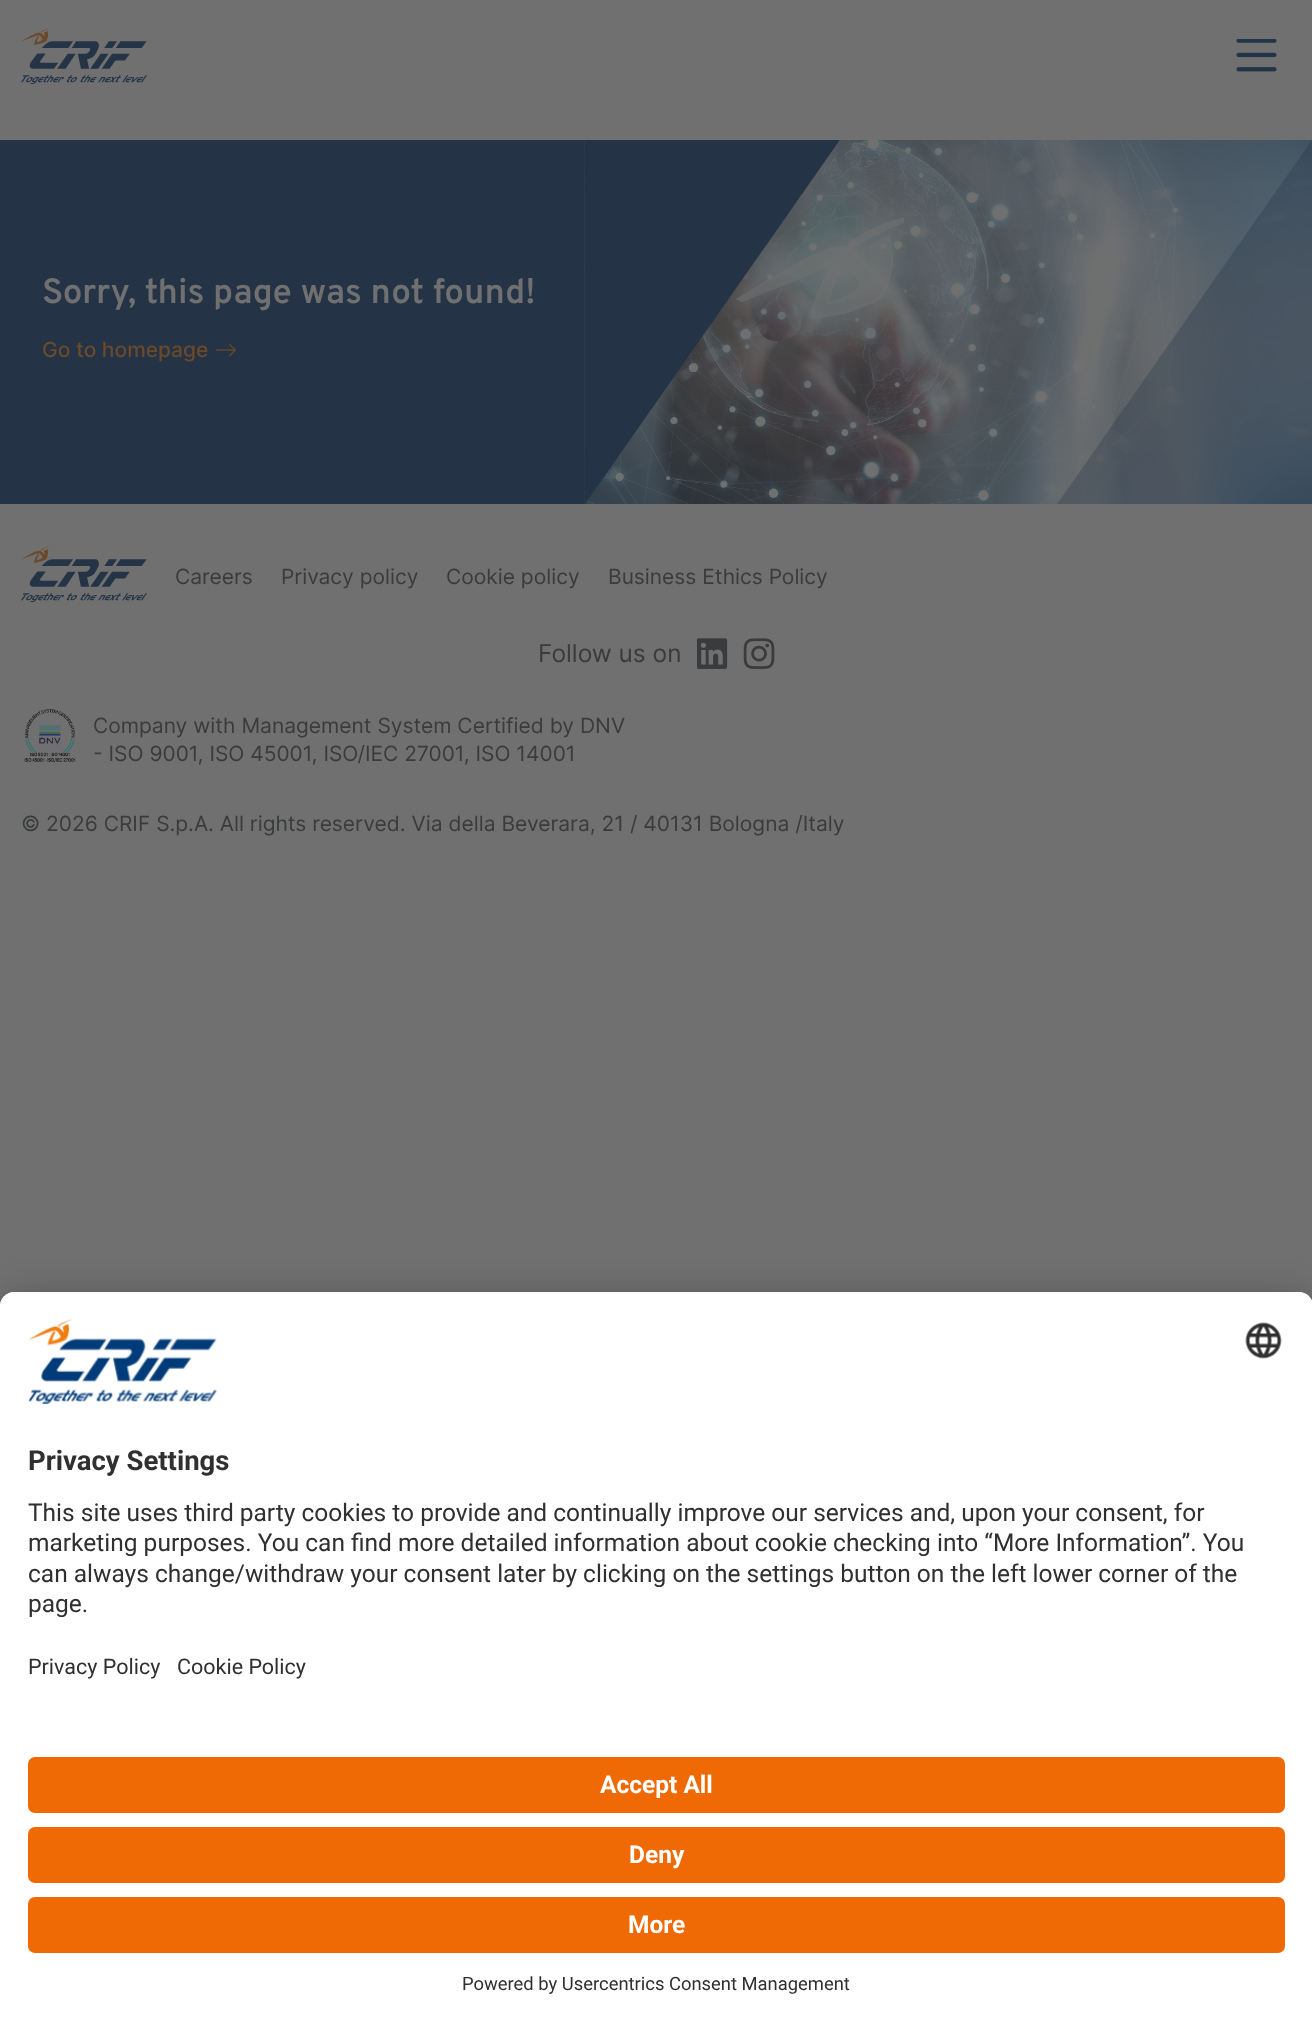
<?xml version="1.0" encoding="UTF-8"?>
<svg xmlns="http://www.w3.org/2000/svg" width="1312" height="2023">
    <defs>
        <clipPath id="clip1"><rect x="585" y="140" width="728" height="364"/></clipPath>
        <filter id="blur1" x="-50%" y="-200%" width="200%" height="500%"><feGaussianBlur stdDeviation="24.5"/></filter>
        <filter id="blur2" x="-50%" y="-200%" width="200%" height="500%"><feGaussianBlur stdDeviation="23"/></filter>
    </defs>
    <rect width="100%" height="100%" fill="#707070"/>
    <image x="21" y="28" width="126" height="56" href="img_01.png"/>
    <image x="1236" y="39" width="41" height="33" href="img_02.png"/>
    <rect x="0" y="140" width="585" height="364" fill="#243446"/>
    <text x="42" y="303" font-family="Overpass" font-size="35" font-weight="600" fill="#707070">Sorry, this page was not found!</text>
    <image x="215" y="343" width="21" height="14" href="img_03.png"/>
    <text x="42" y="357" font-family="Inter" font-size="21" font-weight="500" fill="#6B4929">Go to homepage</text>
    <image x="584" y="140" width="728" height="364" href="img_04.png"/>
    <g clip-path="url(#clip1)">
        <path d="M 757 -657 L 1187 -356 L 585 504 L 154 203 Z" fill="#243446"/>
        <path d="M 1312 140 L 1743 441 L 1140 1301 L 710 1000 Z" fill="#243446" fill-opacity="0.32"/>
    </g>
    <image x="21" y="546" width="126" height="56" href="img_01.png"/>
    <text x="175" y="584" font-family="Inter" font-size="21" fill="#3A3B3C">Careers</text>
    <text x="281" y="584" font-family="Inter" font-size="21" fill="#3A3B3C">Privacy policy</text>
    <text x="446" y="584" font-family="Inter" font-size="21" fill="#3A3B3C">Cookie policy</text>
    <text x="608" y="584" font-family="Inter" font-size="21" fill="#3A3B3C">Business Ethics Policy</text>
    <text x="538" y="662" font-family="Inter" font-size="24.5" fill="#3A3B3C">Follow us on</text>
    <image x="697" y="638" width="31" height="31" href="img_05.png"/>
    <image x="743" y="638" width="32" height="31" href="img_06.png"/>
    <image x="24" y="709" width="52" height="54" href="img_07.png"/>
    <text font-family="Inter" font-size="21" fill="#3A3B3C">
        <tspan x="93" y="733">Company with Management System Certified by DNV</tspan>
        <tspan x="93" y="761">- ISO 9001, ISO 45001, ISO/IEC 27001, ISO 14001</tspan>
    </text>
    <text x="21" y="831" font-family="Inter" font-size="21" fill="#3A3B3C">© 2026 CRIF S.p.A. All rights reserved. Via della Beverara, 21 / 40131 Bologna /Italy</text>
    <rect x="0" y="1327" width="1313" height="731" rx="14" fill="#000000" fill-opacity="0.3" filter="url(#blur1)"/>
    <rect x="0" y="1300" width="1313" height="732" rx="14" fill="#000000" fill-opacity="0.22" filter="url(#blur2)"/>
    <path d="M 14 1292 H 1299 C 1306.5 1292 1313 1298.5 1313 1306 V 2023 H 0 V 1306 C 0 1298.5 6.5 1292 14 1292 Z" fill="#FFFFFF"/>
    <path d="M 14 1292 H 1299 C 1306.5 1292 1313 1298.5 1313 1306 V 1736 H 0 V 1306 C 0 1298.5 6.5 1292 14 1292 Z" fill="#FFFFFF"/>
    <image x="28" y="1319" width="189" height="85" href="img_08.png"/>
    <image x="1245" y="1322" width="37" height="37" href="img_09.png"/>
    <text x="28" y="1470" font-family="Roboto" font-size="27.5" font-weight="700" fill="#303030">Privacy Settings</text>
    <text font-family="Roboto" font-size="24.5" fill="#303030">
        <tspan x="28" y="1521">This site uses third party cookies to provide and continually improve our services and, upon your consent, for</tspan>
        <tspan x="28" y="1551">marketing purposes. You can find more detailed information about cookie checking into “More Information”. You</tspan>
        <tspan x="28" y="1582">can always change/withdraw your consent later by clicking on the settings button on the left lower corner of the</tspan>
        <tspan x="28" y="1612">page.</tspan>
    </text>
    <text x="28" y="1674" font-family="Roboto" font-size="21.5" fill="#303030">Privacy Policy</text>
    <text x="177" y="1674" font-family="Roboto" font-size="21.5" fill="#303030">Cookie Policy</text>
    <rect x="28" y="1757" width="1257" height="56" rx="7" fill="#EF6905"/>
    <text x="600" y="1793" font-family="Roboto" font-size="24.5" font-weight="700" fill="#FFFFFF">Accept All</text>
    <rect x="28" y="1827" width="1257" height="56" rx="7" fill="#EF6905"/>
    <text x="629" y="1863" font-family="Roboto" font-size="24.5" font-weight="700" fill="#FFFFFF">Deny</text>
    <rect x="28" y="1897" width="1257" height="56" rx="7" fill="#EF6905"/>
    <text x="628" y="1933" font-family="Roboto" font-size="24.5" font-weight="700" fill="#FFFFFF">More</text>
    <text x="462" y="1990" font-family="Roboto" font-size="18.4" fill="#303030">Powered by Usercentrics Consent Management</text>
</svg>
